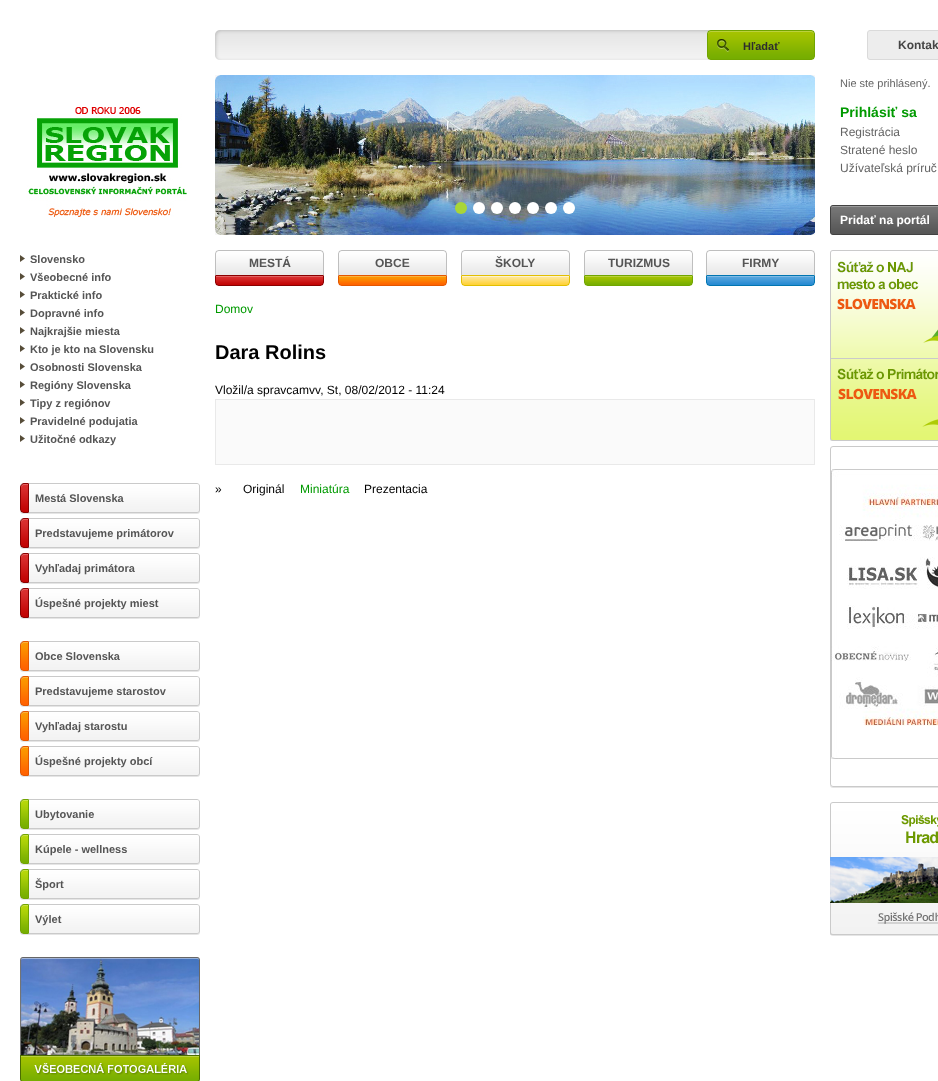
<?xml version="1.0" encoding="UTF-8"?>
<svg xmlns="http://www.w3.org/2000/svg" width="938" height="1081">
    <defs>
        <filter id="blur1" x="-50%" y="-200%" width="200%" height="500%"><feGaussianBlur stdDeviation="0.5"/></filter>
        <clipPath id="clip1"><path d="M 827 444 H 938 V 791 H 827 Z M 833 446 H 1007 C 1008.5 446 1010 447.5 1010 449 V 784 C 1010 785.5 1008.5 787 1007 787 H 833 C 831.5 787 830 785.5 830 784 V 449 C 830 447.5 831.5 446 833 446 Z" clip-rule="evenodd"/></clipPath>
    </defs>
    <rect width="100%" height="100%" fill="#FFFFFF"/>
    <image x="215" y="30" width="492" height="30" href="img_01.png"/>
    <image x="707" y="30" width="108" height="30" href="img_02.png"/>
    <text x="743" y="50" font-family="Liberation Sans" font-size="11" font-weight="700" fill="#2D2D2D">Hľadať</text>
    <image x="215" y="75" width="600" height="160" href="img_03.png"/>
    <circle cx="461" cy="208" r="6" fill="#A9D537"/>
    <circle cx="479" cy="208" r="6" fill="#FFFFFF"/>
    <circle cx="497" cy="208" r="6" fill="#FFFFFF"/>
    <circle cx="515" cy="208" r="6" fill="#FFFFFF"/>
    <circle cx="533" cy="208" r="6" fill="#FFFFFF"/>
    <circle cx="551" cy="208" r="6" fill="#FFFFFF"/>
    <circle cx="569" cy="208" r="6" fill="#FFFFFF"/>
    <rect x="867.5" y="30.5" width="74" height="29" rx="2.5" fill="#EDEDED" stroke="#DADADA"/>
    <text x="898" y="49" font-family="Liberation Sans" font-size="12" font-weight="700" fill="#454545">Kontak</text>
    <text x="840" y="87" font-family="Liberation Sans" font-size="11" fill="#646464">Nie ste prihlásený.</text>
    <text x="840" y="117" font-family="Liberation Sans" font-size="14" font-weight="700" fill="#009A00">Prihlásiť sa</text>
    <text font-family="Liberation Sans" font-size="12" fill="#646464">
        <tspan x="840" y="136">Registrácia</tspan>
        <tspan x="840" y="154">Stratené heslo</tspan>
        <tspan x="840" y="172">Užívateľská príruč</tspan>
    </text>
    <image x="830" y="205" width="108" height="30" href="img_04.png"/>
    <text x="840" y="224" font-family="Liberation Sans" font-size="12" font-weight="700" fill="#FFFFFF">Pridať na portál</text>
    <image x="26" y="107" width="161" height="110" href="img_05.png"/>
    <image x="215" y="250" width="109" height="36" href="img_06.png"/>
    <text x="249" y="267" font-family="Liberation Sans" font-size="12" font-weight="700" fill="#555555">MESTÁ</text>
    <image x="338" y="250" width="109" height="36" href="img_07.png"/>
    <text x="375" y="267" font-family="Liberation Sans" font-size="12" font-weight="700" fill="#555555">OBCE</text>
    <image x="461" y="250" width="109" height="36" href="img_08.png"/>
    <text x="495" y="267" font-family="Liberation Sans" font-size="12" font-weight="700" fill="#555555">ŠKOLY</text>
    <image x="584" y="250" width="109" height="36" href="img_09.png"/>
    <text x="608" y="267" font-family="Liberation Sans" font-size="12" font-weight="700" fill="#555555">TURIZMUS</text>
    <image x="706" y="250" width="109" height="36" href="img_10.png"/>
    <text x="742" y="267" font-family="Liberation Sans" font-size="12" font-weight="700" fill="#555555">FIRMY</text>
    <image x="20" y="255" width="5" height="7" href="img_11.png"/>
    <text x="30" y="263" font-family="Liberation Sans" font-size="11" font-weight="700" fill="#555555">Slovensko</text>
    <image x="20" y="273" width="5" height="7" href="img_11.png"/>
    <text x="30" y="281" font-family="Liberation Sans" font-size="11" font-weight="700" fill="#555555">Všeobecné info</text>
    <image x="20" y="291" width="5" height="7" href="img_11.png"/>
    <text x="30" y="299" font-family="Liberation Sans" font-size="11" font-weight="700" fill="#555555">Praktické info</text>
    <image x="20" y="309" width="5" height="7" href="img_11.png"/>
    <text x="30" y="317" font-family="Liberation Sans" font-size="11" font-weight="700" fill="#555555">Dopravné info</text>
    <image x="20" y="327" width="5" height="7" href="img_11.png"/>
    <text x="30" y="335" font-family="Liberation Sans" font-size="11" font-weight="700" fill="#555555">Najkrajšie miesta</text>
    <image x="20" y="345" width="5" height="7" href="img_11.png"/>
    <text x="30" y="353" font-family="Liberation Sans" font-size="11" font-weight="700" fill="#555555">Kto je kto na Slovensku</text>
    <image x="20" y="363" width="5" height="7" href="img_11.png"/>
    <text x="30" y="371" font-family="Liberation Sans" font-size="11" font-weight="700" fill="#555555">Osobnosti Slovenska</text>
    <image x="20" y="381" width="5" height="7" href="img_11.png"/>
    <text x="30" y="389" font-family="Liberation Sans" font-size="11" font-weight="700" fill="#555555">Regióny Slovenska</text>
    <image x="20" y="399" width="5" height="7" href="img_11.png"/>
    <text x="30" y="407" font-family="Liberation Sans" font-size="11" font-weight="700" fill="#555555">Tipy z regiónov</text>
    <image x="20" y="417" width="5" height="7" href="img_11.png"/>
    <text x="30" y="425" font-family="Liberation Sans" font-size="11" font-weight="700" fill="#555555">Pravidelné podujatia</text>
    <image x="20" y="435" width="5" height="7" href="img_11.png"/>
    <text x="30" y="443" font-family="Liberation Sans" font-size="11" font-weight="700" fill="#555555">Užitočné odkazy</text>
    <rect x="20" y="484" width="180" height="30" rx="3" fill="#000000" fill-opacity="0.1" filter="url(#blur1)"/>
    <image x="20" y="483" width="180" height="30" href="img_12.png"/>
    <text x="35" y="502" font-family="Liberation Sans" font-size="11" font-weight="700" fill="#555555">Mestá Slovenska</text>
    <rect x="20" y="519" width="180" height="30" rx="3" fill="#000000" fill-opacity="0.1" filter="url(#blur1)"/>
    <image x="20" y="518" width="180" height="30" href="img_12.png"/>
    <text x="35" y="537" font-family="Liberation Sans" font-size="11" font-weight="700" fill="#555555">Predstavujeme primátorov</text>
    <rect x="20" y="554" width="180" height="30" rx="3" fill="#000000" fill-opacity="0.1" filter="url(#blur1)"/>
    <image x="20" y="553" width="180" height="30" href="img_12.png"/>
    <text x="35" y="572" font-family="Liberation Sans" font-size="11" font-weight="700" fill="#555555">Vyhľadaj primátora</text>
    <rect x="20" y="589" width="180" height="30" rx="3" fill="#000000" fill-opacity="0.1" filter="url(#blur1)"/>
    <image x="20" y="588" width="180" height="30" href="img_12.png"/>
    <text x="35" y="607" font-family="Liberation Sans" font-size="11" font-weight="700" fill="#555555">Úspešné projekty miest</text>
    <rect x="20" y="642" width="180" height="30" rx="3" fill="#000000" fill-opacity="0.1" filter="url(#blur1)"/>
    <image x="20" y="641" width="180" height="30" href="img_13.png"/>
    <text x="35" y="660" font-family="Liberation Sans" font-size="11" font-weight="700" fill="#555555">Obce Slovenska</text>
    <rect x="20" y="677" width="180" height="30" rx="3" fill="#000000" fill-opacity="0.1" filter="url(#blur1)"/>
    <image x="20" y="676" width="180" height="30" href="img_13.png"/>
    <text x="35" y="695" font-family="Liberation Sans" font-size="11" font-weight="700" fill="#555555">Predstavujeme starostov</text>
    <rect x="20" y="712" width="180" height="30" rx="3" fill="#000000" fill-opacity="0.1" filter="url(#blur1)"/>
    <image x="20" y="711" width="180" height="30" href="img_13.png"/>
    <text x="35" y="730" font-family="Liberation Sans" font-size="11" font-weight="700" fill="#555555">Vyhľadaj starostu</text>
    <rect x="20" y="747" width="180" height="30" rx="3" fill="#000000" fill-opacity="0.1" filter="url(#blur1)"/>
    <image x="20" y="746" width="180" height="30" href="img_13.png"/>
    <text x="35" y="765" font-family="Liberation Sans" font-size="11" font-weight="700" fill="#555555">Úspešné projekty obcí</text>
    <rect x="20" y="800" width="180" height="30" rx="3" fill="#000000" fill-opacity="0.1" filter="url(#blur1)"/>
    <image x="20" y="799" width="180" height="30" href="img_14.png"/>
    <text x="35" y="818" font-family="Liberation Sans" font-size="11" font-weight="700" fill="#555555">Ubytovanie</text>
    <rect x="20" y="835" width="180" height="30" rx="3" fill="#000000" fill-opacity="0.1" filter="url(#blur1)"/>
    <image x="20" y="834" width="180" height="30" href="img_14.png"/>
    <text x="35" y="853" font-family="Liberation Sans" font-size="11" font-weight="700" fill="#555555">Kúpele - wellness</text>
    <rect x="20" y="870" width="180" height="30" rx="3" fill="#000000" fill-opacity="0.1" filter="url(#blur1)"/>
    <image x="20" y="869" width="180" height="30" href="img_14.png"/>
    <text x="35" y="888" font-family="Liberation Sans" font-size="11" font-weight="700" fill="#555555">Šport</text>
    <rect x="20" y="905" width="180" height="30" rx="3" fill="#000000" fill-opacity="0.1" filter="url(#blur1)"/>
    <image x="20" y="904" width="180" height="30" href="img_14.png"/>
    <text x="35" y="923" font-family="Liberation Sans" font-size="11" font-weight="700" fill="#555555">Výlet</text>
    <image x="20" y="957" width="180" height="124" href="img_15.png"/>
    <text x="215" y="313" font-family="Liberation Sans" font-size="12" fill="#009A00">Domov</text>
    <text x="215" y="359" font-family="Liberation Sans" font-size="20" font-weight="700" fill="#000000">Dara Rolins</text>
    <text x="215" y="394" font-family="Liberation Sans" font-size="12" fill="#000000">Vložil/a spravcamvv, St, 08/02/2012 - 11:24</text>
    <rect x="215.5" y="399.5" width="599" height="65" fill="#FAFAFA" stroke="#E9E9E9"/>
    <text x="215" y="493" font-family="Liberation Sans" font-size="12" fill="#000000">»</text>
    <text x="243" y="493" font-family="Liberation Sans" font-size="12" fill="#000000">Originál</text>
    <text x="300" y="493" font-family="Liberation Sans" font-size="12" fill="#009A00">Miniatúra</text>
    <text x="364" y="493" font-family="Liberation Sans" font-size="12" fill="#000000">Prezentacia</text>
    <image x="830" y="250" width="108" height="191" href="img_16.png"/>
    <g clip-path="url(#clip1)">
        <rect x="830" y="447" width="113" height="341" rx="3" fill="#000000" fill-opacity="0.1" filter="url(#blur1)"/>
    </g>
    <rect x="830.5" y="446.5" width="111" height="340" rx="2.5" fill="none" stroke="#CACACA"/>
    <image x="831" y="469" width="107" height="290" href="img_17.png"/>
    <rect x="830" y="803" width="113" height="133" rx="3" fill="#000000" fill-opacity="0.1" filter="url(#blur1)"/>
    <image x="830" y="802" width="108" height="133" href="img_18.png"/>
</svg>
